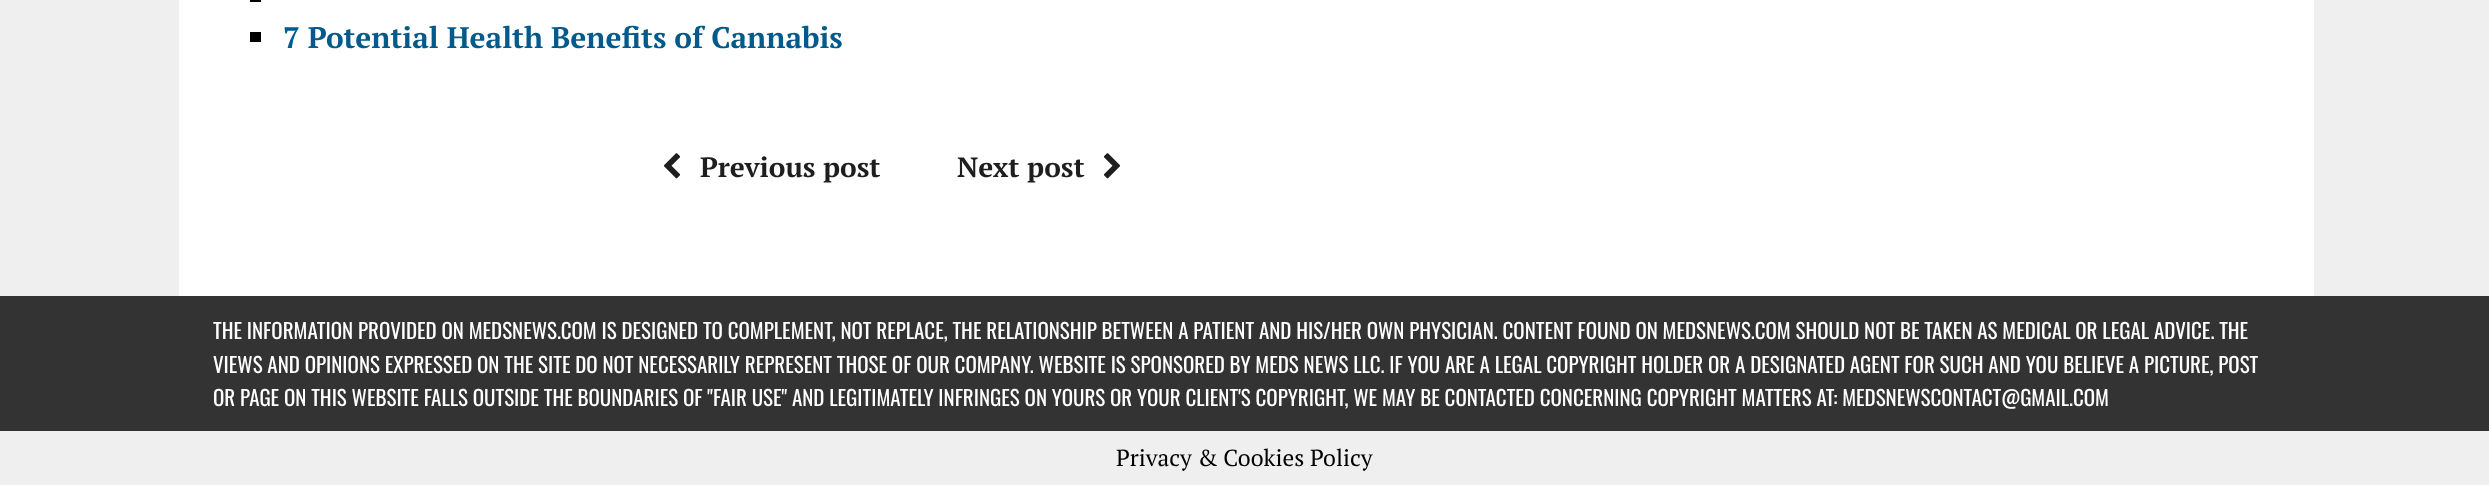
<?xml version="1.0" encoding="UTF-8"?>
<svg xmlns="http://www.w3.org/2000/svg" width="2489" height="485">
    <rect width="100%" height="100%" fill="#EFEFEF"/>
    <rect x="179" y="0" width="2135" height="296" fill="#FFFFFF"/>
    <rect x="250" y="0" width="11" height="2" fill="#000000"/>
    <rect x="250" y="32" width="11" height="10" fill="#000000"/>
    <text x="283" y="48" font-family="PT Serif" font-size="29.75" font-weight="700" fill="#005A8C">7 Potential Health Benefits of Cannabis</text>
    <image x="663" y="153" width="18" height="26" href="img_01.png"/>
    <text x="700" y="177" font-family="PT Serif" font-size="28" font-weight="700" fill="#1F1E1E">Previous post</text>
    <text x="957" y="177" font-family="PT Serif" font-size="28" font-weight="700" fill="#1F1E1E">Next post</text>
    <image x="1103" y="153" width="18" height="26" href="img_02.png"/>
    <rect x="0" y="296" width="2489" height="135" fill="#333333"/>
    <text font-family="Oswald" font-size="21" fill="#FFFFFF">
        <tspan x="213" y="339">THE INFORMATION PROVIDED ON MEDSNEWS.COM IS DESIGNED TO COMPLEMENT, NOT REPLACE, THE RELATIONSHIP BETWEEN A PATIENT AND HIS/HER OWN PHYSICIAN. CONTENT FOUND ON MEDSNEWS.COM SHOULD NOT BE TAKEN AS MEDICAL OR LEGAL ADVICE. THE</tspan>
        <tspan x="213" y="373">VIEWS AND OPINIONS EXPRESSED ON THE SITE DO NOT NECESSARILY REPRESENT THOSE OF OUR COMPANY. WEBSITE IS SPONSORED BY MEDS NEWS LLC. IF YOU ARE A LEGAL COPYRIGHT HOLDER OR A DESIGNATED AGENT FOR SUCH AND YOU BELIEVE A PICTURE, POST</tspan>
        <tspan x="213" y="406">OR PAGE ON THIS WEBSITE FALLS OUTSIDE THE BOUNDARIES OF "FAIR USE" AND LEGITIMATELY INFRINGES ON YOURS OR YOUR CLIENT'S COPYRIGHT, WE MAY BE CONTACTED CONCERNING COPYRIGHT MATTERS AT: MEDSNEWSCONTACT@GMAIL.COM</tspan>
    </text>
    <text x="1116" y="466" font-family="PT Serif" font-size="23.25" fill="#000000">Privacy &amp; Cookies Policy</text>
</svg>
